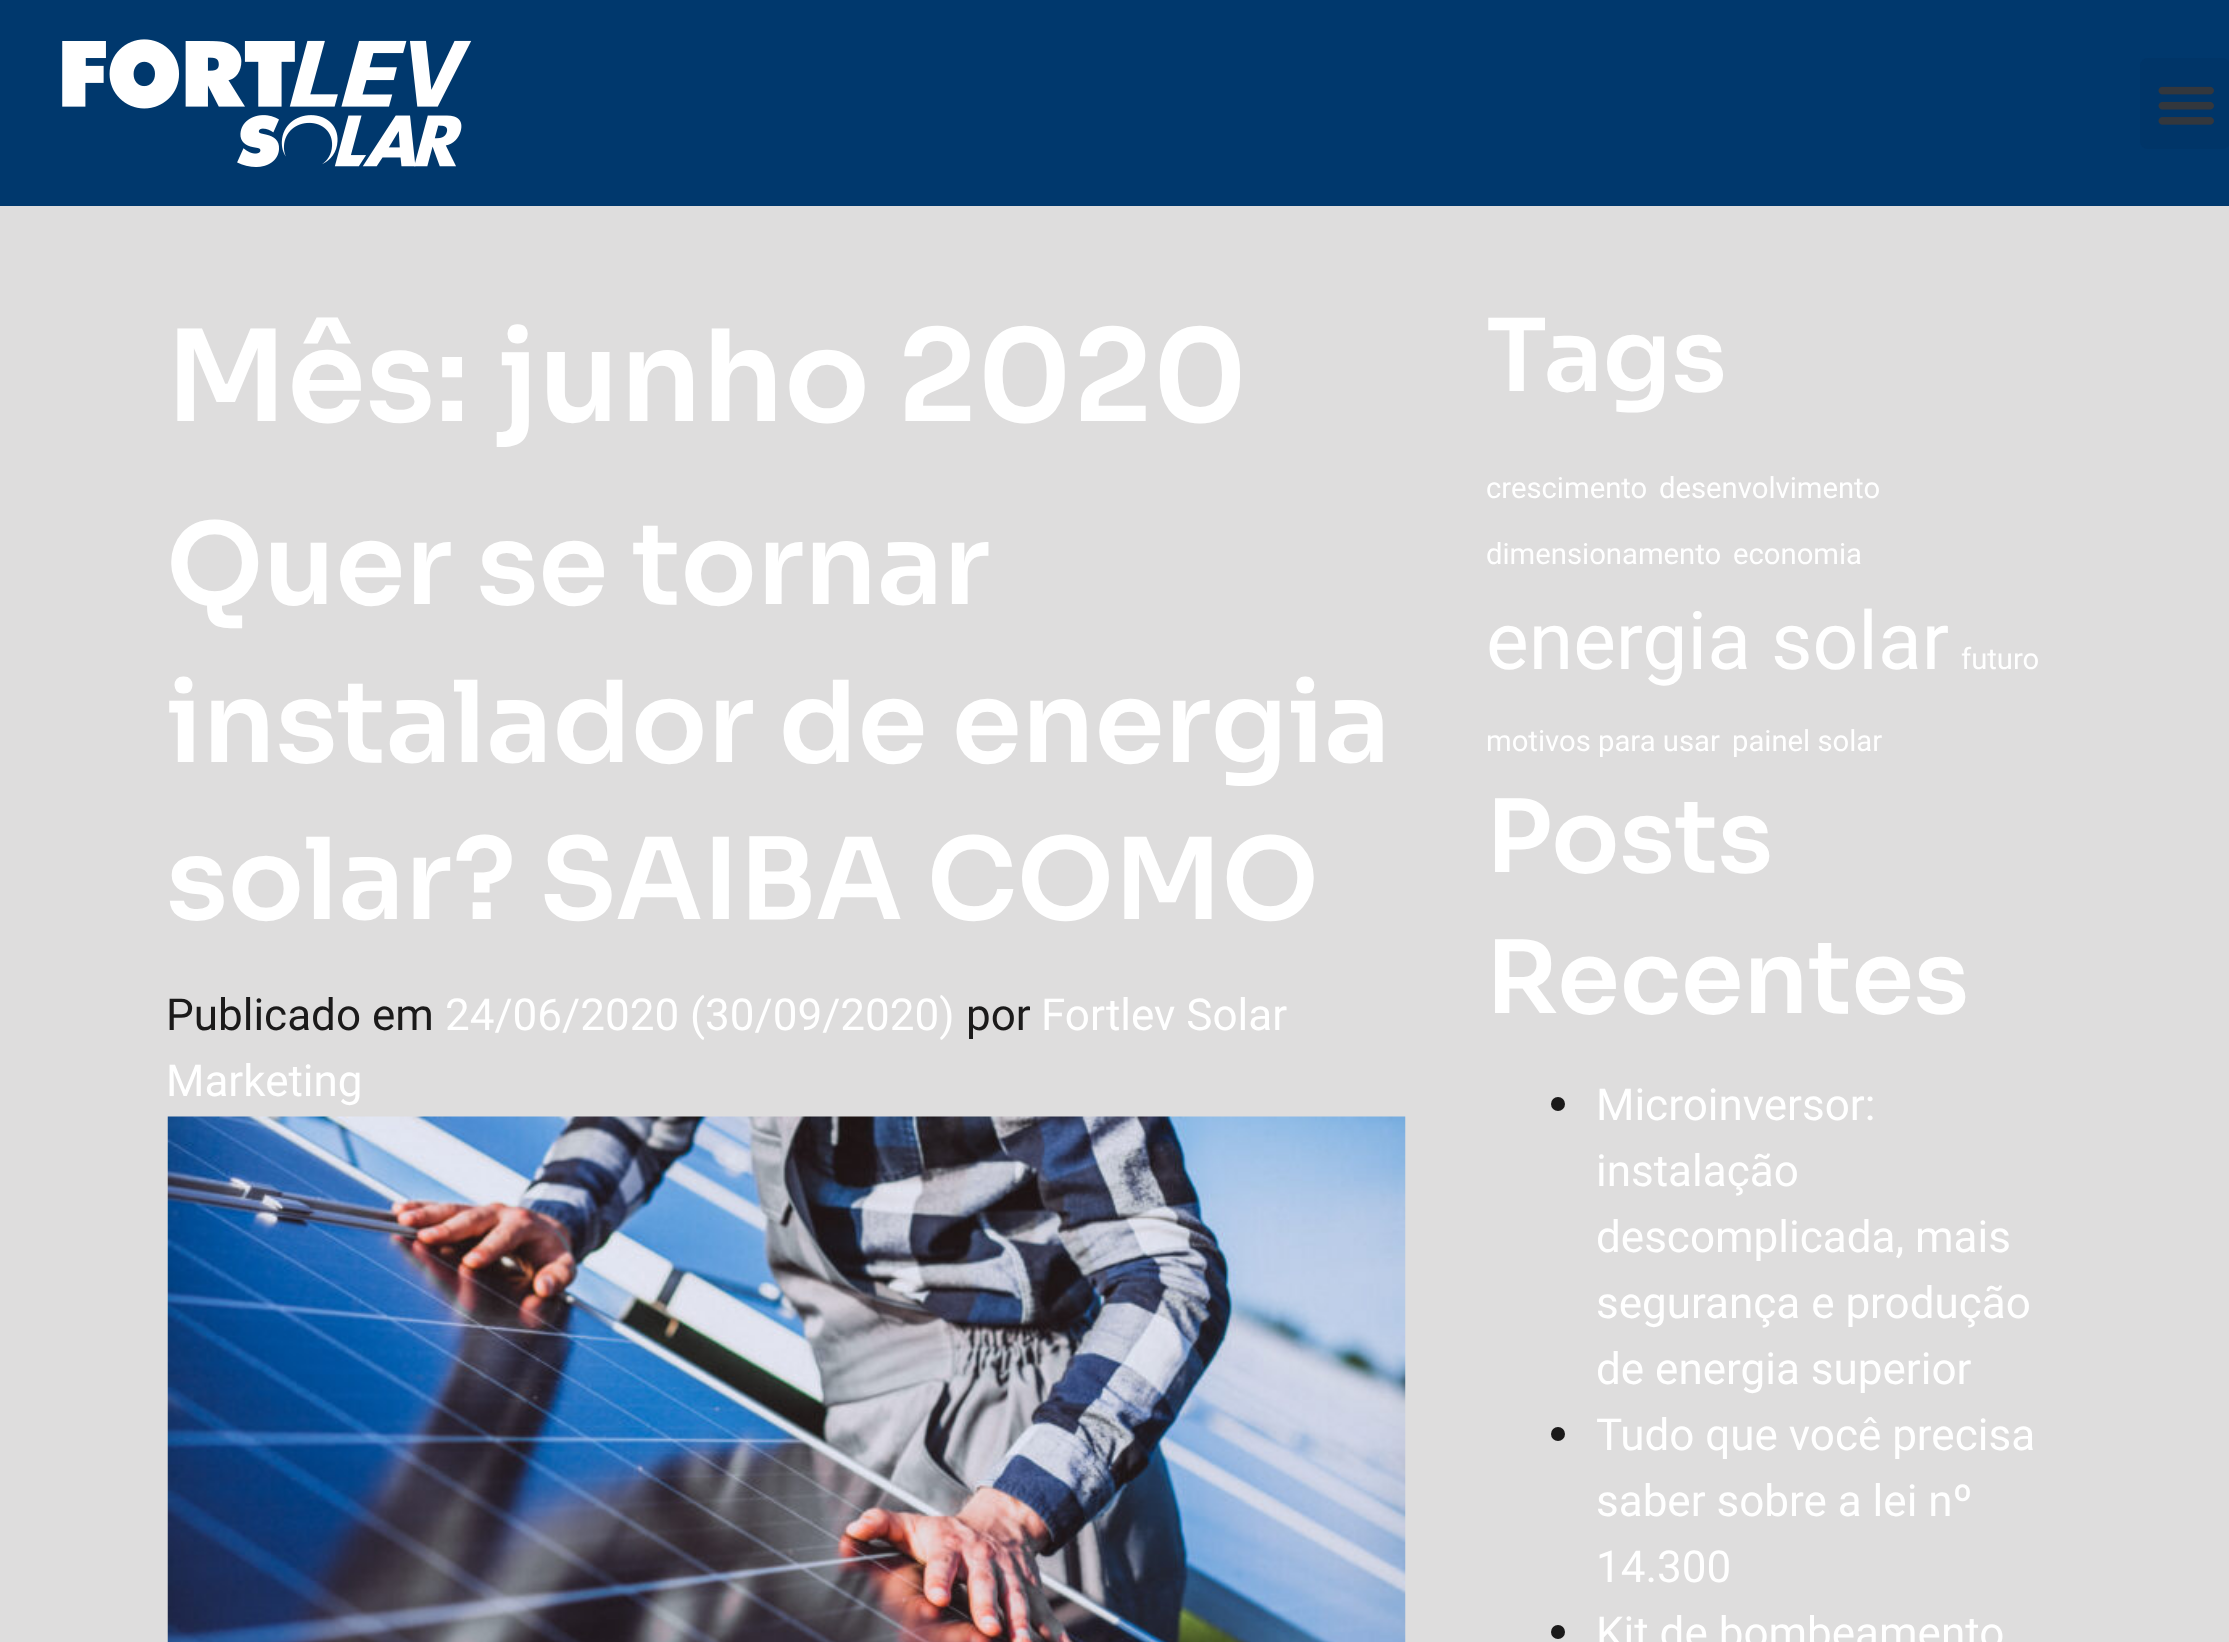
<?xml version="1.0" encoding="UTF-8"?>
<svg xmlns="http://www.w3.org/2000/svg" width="2229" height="1642">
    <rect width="100%" height="100%" fill="#DEDDDD"/>
    <rect x="0" y="0" width="2229" height="206" fill="#00386D"/>
    <image x="62" y="39" width="410" height="128" href="img_01.png"/>
    <rect x="2140" y="58" width="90" height="91" rx="8" fill="#003568"/>
    <image x="2158" y="86" width="56" height="39" href="img_02.png"/>
    <text x="166" y="421" font-family="Sora" font-size="126.75" font-weight="600" fill="#FFFFFF">Mês: junho 2020</text>
    <text font-family="Sora" font-size="112.6" font-weight="600" fill="#FFFFFF">
        <tspan x="166" y="604">Quer se tornar</tspan>
        <tspan x="166" y="762">instalador de energia</tspan>
        <tspan x="166" y="919">solar? SAIBA COMO</tspan>
    </text>
    <text x="166" y="1030" font-family="Roboto" font-size="44" fill="#1B1A1A">Publicado em</text>
    <text x="445" y="1030" font-family="Roboto" font-size="44" fill="#FFFFFF">24/06/2020 (30/09/2020)</text>
    <text x="966" y="1030" font-family="Roboto" font-size="44" fill="#1B1A1A">por</text>
    <text x="1041" y="1030" font-family="Roboto" font-size="44" fill="#FFFFFF">Fortlev Solar</text>
    <text x="166" y="1096" font-family="Roboto" font-size="44" fill="#FFFFFF">Marketing</text>
    <image x="167" y="1116" width="1239" height="526" href="img_03.png"/>
    <text x="1486" y="391" font-family="Sora" font-size="100.5" font-weight="600" fill="#FFFFFF">Tags</text>
    <text x="1486" y="498" font-family="Roboto" font-size="29.25" fill="#FFFFFF">crescimento</text>
    <text x="1659" y="498" font-family="Roboto" font-size="29.25" fill="#FFFFFF">desenvolvimento</text>
    <text x="1486" y="564" font-family="Roboto" font-size="29.25" fill="#FFFFFF">dimensionamento</text>
    <text x="1733" y="564" font-family="Roboto" font-size="29.25" fill="#FFFFFF">economia</text>
    <text x="1486" y="669" font-family="Roboto" font-size="80.5" fill="#FFFFFF">energia solar</text>
    <text x="1961" y="669" font-family="Roboto" font-size="29.25" fill="#FFFFFF">futuro</text>
    <text x="1486" y="751" font-family="Roboto" font-size="29.25" fill="#FFFFFF">motivos para usar</text>
    <text x="1732" y="751" font-family="Roboto" font-size="29.25" fill="#FFFFFF">painel solar</text>
    <text font-family="Sora" font-size="100.5" font-weight="600" fill="#FFFFFF">
        <tspan x="1486" y="872">Posts</tspan>
        <tspan x="1486" y="1013">Recentes</tspan>
    </text>
    <circle cx="1558" cy="1104" r="7" fill="#1B1A1A"/>
    <text font-family="Roboto" font-size="44" fill="#FFFFFF">
        <tspan x="1596" y="1120">Microinversor:</tspan>
        <tspan x="1596" y="1186">instalação</tspan>
        <tspan x="1596" y="1252">descomplicada, mais</tspan>
        <tspan x="1596" y="1318">segurança e produção</tspan>
        <tspan x="1596" y="1384">de energia superior</tspan>
    </text>
    <circle cx="1558" cy="1434" r="7" fill="#1B1A1A"/>
    <text font-family="Roboto" font-size="44" fill="#FFFFFF">
        <tspan x="1596" y="1450">Tudo que você precisa</tspan>
        <tspan x="1596" y="1516">saber sobre a lei nº</tspan>
        <tspan x="1596" y="1582">14.300</tspan>
    </text>
    <circle cx="1558" cy="1632" r="7" fill="#1B1A1A"/>
    <text x="1596" y="1648" font-family="Roboto" font-size="44" fill="#FFFFFF">Kit de bombeamento</text>
</svg>
